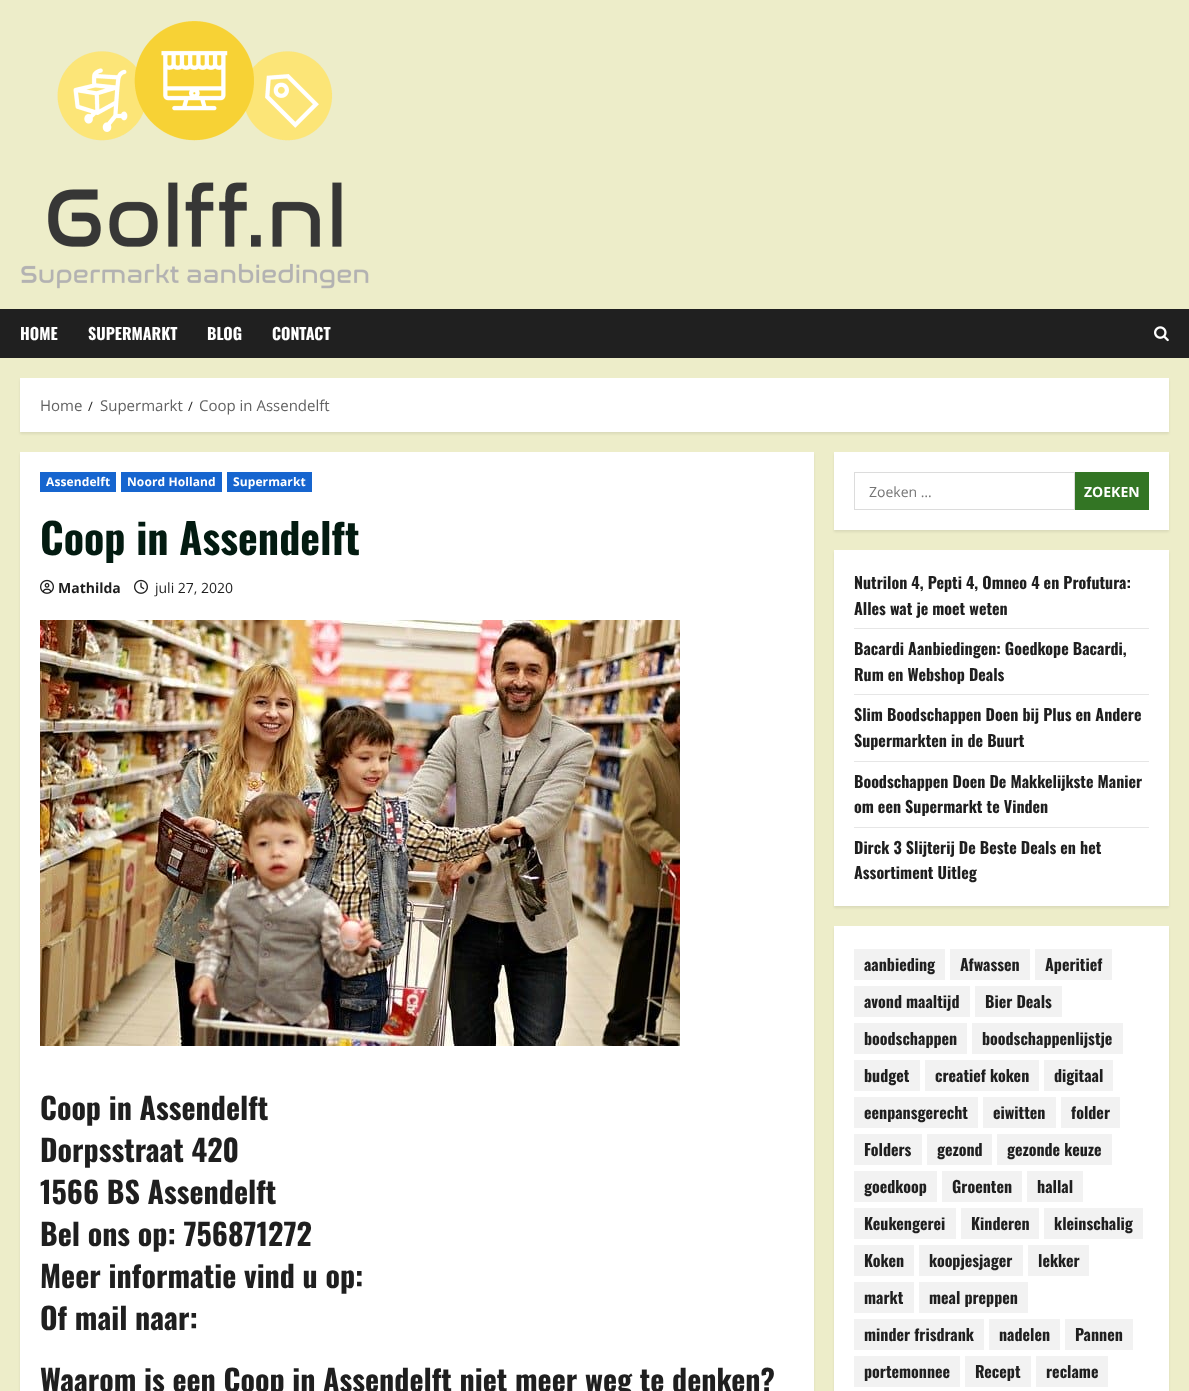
<?xml version="1.0" encoding="UTF-8"?>
<svg xmlns="http://www.w3.org/2000/svg" width="1189" height="1391">
    <defs>
        <filter id="blur1" x="-50%" y="-200%" width="200%" height="500%"><feGaussianBlur stdDeviation="1"/></filter>
    </defs>
    <rect width="100%" height="100%" fill="#EDEDC9"/>
    <image x="21" y="21" width="348" height="268" href="img_01.png"/>
    <rect x="0" y="309" width="1189" height="49" fill="#202020"/>
    <text x="20" y="340" font-family="Oswald" font-size="16" font-weight="700" fill="#FFFFFF">HOME</text>
    <text x="88" y="340" font-family="Oswald" font-size="16" font-weight="700" fill="#FFFFFF">SUPERMARKT</text>
    <text x="207" y="340" font-family="Oswald" font-size="16" font-weight="700" fill="#FFFFFF">BLOG</text>
    <text x="272" y="340" font-family="Oswald" font-size="16" font-weight="700" fill="#FFFFFF">CONTACT</text>
    <image x="1154" y="326" width="15" height="16" href="img_02.png"/>
    <rect x="20" y="380" width="1149" height="54" fill="#000000" fill-opacity="0.08" filter="url(#blur1)"/>
    <rect x="20" y="378" width="1149" height="54" fill="#FFFFFF"/>
    <text x="40" y="411" font-family="Open Sans" font-size="15" fill="#626262">Home</text>
    <text x="88" y="411" font-family="Open Sans" font-size="13" fill="#1F1F1F">/</text>
    <text x="100" y="411" font-family="Open Sans" font-size="15" fill="#626262">Supermarkt</text>
    <text x="188" y="411" font-family="Open Sans" font-size="13" fill="#1F1F1F">/</text>
    <text x="199" y="411" font-family="Open Sans" font-size="15" fill="#626262">Coop in Assendelft</text>
    <rect x="20" y="454" width="794" height="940" fill="#000000" fill-opacity="0.08" filter="url(#blur1)"/>
    <rect x="20" y="452" width="794" height="939" fill="#FFFFFF"/>
    <rect x="40" y="472" width="76" height="20" fill="#1665CF"/>
    <text x="46" y="486" font-family="Open Sans" font-size="12" font-weight="700" letter-spacing="0.1" fill="#FFFFFF">Assendelft</text>
    <rect x="121" y="472" width="101" height="20" fill="#1665CF"/>
    <text x="127" y="486" font-family="Open Sans" font-size="12" font-weight="700" letter-spacing="0.1" fill="#FFFFFF">Noord Holland</text>
    <rect x="227" y="472" width="85" height="20" fill="#1665CF"/>
    <text x="233" y="486" font-family="Open Sans" font-size="12" font-weight="700" letter-spacing="0.1" fill="#FFFFFF">Supermarkt</text>
    <text x="40" y="555" font-family="Oswald" font-size="42" font-weight="700" fill="#031B11">Coop in Assendelft</text>
    <image x="40" y="579" width="14" height="15" href="img_03.png"/>
    <text x="58" y="593" font-family="Open Sans" font-size="14" font-weight="700" fill="#1F1F1F">Mathilda</text>
    <image x="134" y="579" width="14" height="15" href="img_04.png"/>
    <text x="155" y="593" font-family="Open Sans" font-size="14" fill="#1F1F1F">juli 27, 2020</text>
    <image x="40" y="620" width="640" height="426" href="img_05.png"/>
    <text font-family="Oswald" font-size="30" font-weight="700" fill="#1F1F1F">
        <tspan x="40" y="1120">Coop in Assendelft</tspan>
        <tspan x="40" y="1162">Dorpsstraat 420</tspan>
        <tspan x="40" y="1204">1566 BS Assendelft</tspan>
        <tspan x="40" y="1246">Bel ons op: 756871272</tspan>
        <tspan x="40" y="1288">Meer informatie vind u op:</tspan>
        <tspan x="40" y="1330">Of mail naar:</tspan>
    </text>
    <text x="40" y="1392" font-family="Oswald" font-size="30" font-weight="700" fill="#1F1F1F">Waarom is een Coop in Assendelft niet meer weg te denken?</text>
    <rect x="834" y="454" width="335" height="78" fill="#000000" fill-opacity="0.08" filter="url(#blur1)"/>
    <rect x="834" y="452" width="335" height="78" fill="#FFFFFF"/>
    <rect x="854.5" y="472.5" width="220" height="37" fill="none" stroke="#DCDCDC"/>
    <text x="869" y="497" font-family="Open Sans" font-size="14" fill="#757575">Zoeken …</text>
    <rect x="1075" y="472" width="74" height="38" fill="#337524"/>
    <text x="1084" y="497" font-family="Open Sans" font-size="14" font-weight="700" fill="#FFFFFF">ZOEKEN</text>
    <rect x="834" y="552" width="335" height="356" fill="#000000" fill-opacity="0.08" filter="url(#blur1)"/>
    <rect x="834" y="550" width="335" height="356" fill="#FFFFFF"/>
    <rect x="854" y="628" width="295" height="1" fill="#E6E6E6"/>
    <text font-family="Oswald" font-size="16" font-weight="700" fill="#1F1F1F">
        <tspan x="854" y="589">Nutrilon 4, Pepti 4, Omneo 4 en Profutura:</tspan>
        <tspan x="854" y="615">Alles wat je moet weten</tspan>
    </text>
    <rect x="854" y="694" width="295" height="1" fill="#E6E6E6"/>
    <text font-family="Oswald" font-size="16" font-weight="700" fill="#1F1F1F">
        <tspan x="854" y="655">Bacardi Aanbiedingen: Goedkope Bacardi,</tspan>
        <tspan x="854" y="681">Rum en Webshop Deals</tspan>
    </text>
    <rect x="854" y="761" width="295" height="1" fill="#E6E6E6"/>
    <text font-family="Oswald" font-size="16" font-weight="700" fill="#1F1F1F">
        <tspan x="854" y="721">Slim Boodschappen Doen bij Plus en Andere</tspan>
        <tspan x="854" y="747">Supermarkten in de Buurt</tspan>
    </text>
    <rect x="854" y="827" width="295" height="1" fill="#E6E6E6"/>
    <text font-family="Oswald" font-size="16" font-weight="700" fill="#1F1F1F">
        <tspan x="854" y="788">Boodschappen Doen De Makkelijkste Manier</tspan>
        <tspan x="854" y="813">om een Supermarkt te Vinden</tspan>
    </text>
    <text font-family="Oswald" font-size="16" font-weight="700" fill="#1F1F1F">
        <tspan x="854" y="854">Dirck 3 Slijterij De Beste Deals en het</tspan>
        <tspan x="854" y="879">Assortiment Uitleg</tspan>
    </text>
    <rect x="834" y="928" width="335" height="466" fill="#000000" fill-opacity="0.08" filter="url(#blur1)"/>
    <rect x="834" y="926" width="335" height="465" fill="#FFFFFF"/>
    <rect x="854" y="949" width="91" height="31" fill="#F2F2F2"/>
    <text x="864" y="971" font-family="Oswald" font-size="16" font-weight="700" fill="#1F1F1F">aanbieding</text>
    <rect x="950" y="949" width="80" height="31" fill="#F2F2F2"/>
    <text x="960" y="971" font-family="Oswald" font-size="16" font-weight="700" fill="#1F1F1F">Afwassen</text>
    <rect x="1035" y="949" width="77" height="31" fill="#F2F2F2"/>
    <text x="1045" y="971" font-family="Oswald" font-size="16" font-weight="700" fill="#1F1F1F">Aperitief</text>
    <rect x="854" y="986" width="116" height="31" fill="#F2F2F2"/>
    <text x="864" y="1008" font-family="Oswald" font-size="16" font-weight="700" fill="#1F1F1F">avond maaltijd</text>
    <rect x="975" y="986" width="87" height="31" fill="#F2F2F2"/>
    <text x="985" y="1008" font-family="Oswald" font-size="16" font-weight="700" fill="#1F1F1F">Bier Deals</text>
    <rect x="854" y="1023" width="113" height="31" fill="#F2F2F2"/>
    <text x="864" y="1045" font-family="Oswald" font-size="16" font-weight="700" fill="#1F1F1F">boodschappen</text>
    <rect x="972" y="1023" width="151" height="31" fill="#F2F2F2"/>
    <text x="982" y="1045" font-family="Oswald" font-size="16" font-weight="700" fill="#1F1F1F">boodschappenlijstje</text>
    <rect x="854" y="1060" width="66" height="31" fill="#F2F2F2"/>
    <text x="864" y="1082" font-family="Oswald" font-size="16" font-weight="700" fill="#1F1F1F">budget</text>
    <rect x="925" y="1060" width="114" height="31" fill="#F2F2F2"/>
    <text x="935" y="1082" font-family="Oswald" font-size="16" font-weight="700" fill="#1F1F1F">creatief koken</text>
    <rect x="1044" y="1060" width="69" height="31" fill="#F2F2F2"/>
    <text x="1054" y="1082" font-family="Oswald" font-size="16" font-weight="700" fill="#1F1F1F">digitaal</text>
    <rect x="854" y="1097" width="124" height="31" fill="#F2F2F2"/>
    <text x="864" y="1119" font-family="Oswald" font-size="16" font-weight="700" fill="#1F1F1F">eenpansgerecht</text>
    <rect x="983" y="1097" width="73" height="31" fill="#F2F2F2"/>
    <text x="993" y="1119" font-family="Oswald" font-size="16" font-weight="700" fill="#1F1F1F">eiwitten</text>
    <rect x="1061" y="1097" width="59" height="31" fill="#F2F2F2"/>
    <text x="1071" y="1119" font-family="Oswald" font-size="16" font-weight="700" fill="#1F1F1F">folder</text>
    <rect x="854" y="1134" width="68" height="31" fill="#F2F2F2"/>
    <text x="864" y="1156" font-family="Oswald" font-size="16" font-weight="700" fill="#1F1F1F">Folders</text>
    <rect x="927" y="1134" width="65" height="31" fill="#F2F2F2"/>
    <text x="937" y="1156" font-family="Oswald" font-size="16" font-weight="700" fill="#1F1F1F">gezond</text>
    <rect x="997" y="1134" width="115" height="31" fill="#F2F2F2"/>
    <text x="1007" y="1156" font-family="Oswald" font-size="16" font-weight="700" fill="#1F1F1F">gezonde keuze</text>
    <rect x="854" y="1171" width="83" height="31" fill="#F2F2F2"/>
    <text x="864" y="1193" font-family="Oswald" font-size="16" font-weight="700" fill="#1F1F1F">goedkoop</text>
    <rect x="942" y="1171" width="80" height="31" fill="#F2F2F2"/>
    <text x="952" y="1193" font-family="Oswald" font-size="16" font-weight="700" fill="#1F1F1F">Groenten</text>
    <rect x="1027" y="1171" width="56" height="31" fill="#F2F2F2"/>
    <text x="1037" y="1193" font-family="Oswald" font-size="16" font-weight="700" fill="#1F1F1F">hallal</text>
    <rect x="854" y="1208" width="102" height="31" fill="#F2F2F2"/>
    <text x="864" y="1230" font-family="Oswald" font-size="16" font-weight="700" fill="#1F1F1F">Keukengerei</text>
    <rect x="961" y="1208" width="78" height="31" fill="#F2F2F2"/>
    <text x="971" y="1230" font-family="Oswald" font-size="16" font-weight="700" fill="#1F1F1F">Kinderen</text>
    <rect x="1044" y="1208" width="99" height="31" fill="#F2F2F2"/>
    <text x="1054" y="1230" font-family="Oswald" font-size="16" font-weight="700" fill="#1F1F1F">kleinschalig</text>
    <rect x="854" y="1245" width="60" height="31" fill="#F2F2F2"/>
    <text x="864" y="1267" font-family="Oswald" font-size="16" font-weight="700" fill="#1F1F1F">Koken</text>
    <rect x="919" y="1245" width="104" height="31" fill="#F2F2F2"/>
    <text x="929" y="1267" font-family="Oswald" font-size="16" font-weight="700" fill="#1F1F1F">koopjesjager</text>
    <rect x="1028" y="1245" width="61" height="31" fill="#F2F2F2"/>
    <text x="1038" y="1267" font-family="Oswald" font-size="16" font-weight="700" fill="#1F1F1F">lekker</text>
    <rect x="854" y="1282" width="60" height="31" fill="#F2F2F2"/>
    <text x="864" y="1304" font-family="Oswald" font-size="16" font-weight="700" fill="#1F1F1F">markt</text>
    <rect x="919" y="1282" width="109" height="31" fill="#F2F2F2"/>
    <text x="929" y="1304" font-family="Oswald" font-size="16" font-weight="700" fill="#1F1F1F">meal preppen</text>
    <rect x="854" y="1319" width="130" height="31" fill="#F2F2F2"/>
    <text x="864" y="1341" font-family="Oswald" font-size="16" font-weight="700" fill="#1F1F1F">minder frisdrank</text>
    <rect x="989" y="1319" width="71" height="31" fill="#F2F2F2"/>
    <text x="999" y="1341" font-family="Oswald" font-size="16" font-weight="700" fill="#1F1F1F">nadelen</text>
    <rect x="1065" y="1319" width="68" height="31" fill="#F2F2F2"/>
    <text x="1075" y="1341" font-family="Oswald" font-size="16" font-weight="700" fill="#1F1F1F">Pannen</text>
    <rect x="854" y="1356" width="106" height="31" fill="#F2F2F2"/>
    <text x="864" y="1378" font-family="Oswald" font-size="16" font-weight="700" fill="#1F1F1F">portemonnee</text>
    <rect x="965" y="1356" width="66" height="31" fill="#F2F2F2"/>
    <text x="975" y="1378" font-family="Oswald" font-size="16" font-weight="700" fill="#1F1F1F">Recept</text>
    <rect x="1036" y="1356" width="72" height="31" fill="#F2F2F2"/>
    <text x="1046" y="1378" font-family="Oswald" font-size="16" font-weight="700" fill="#1F1F1F">reclame</text>
</svg>
